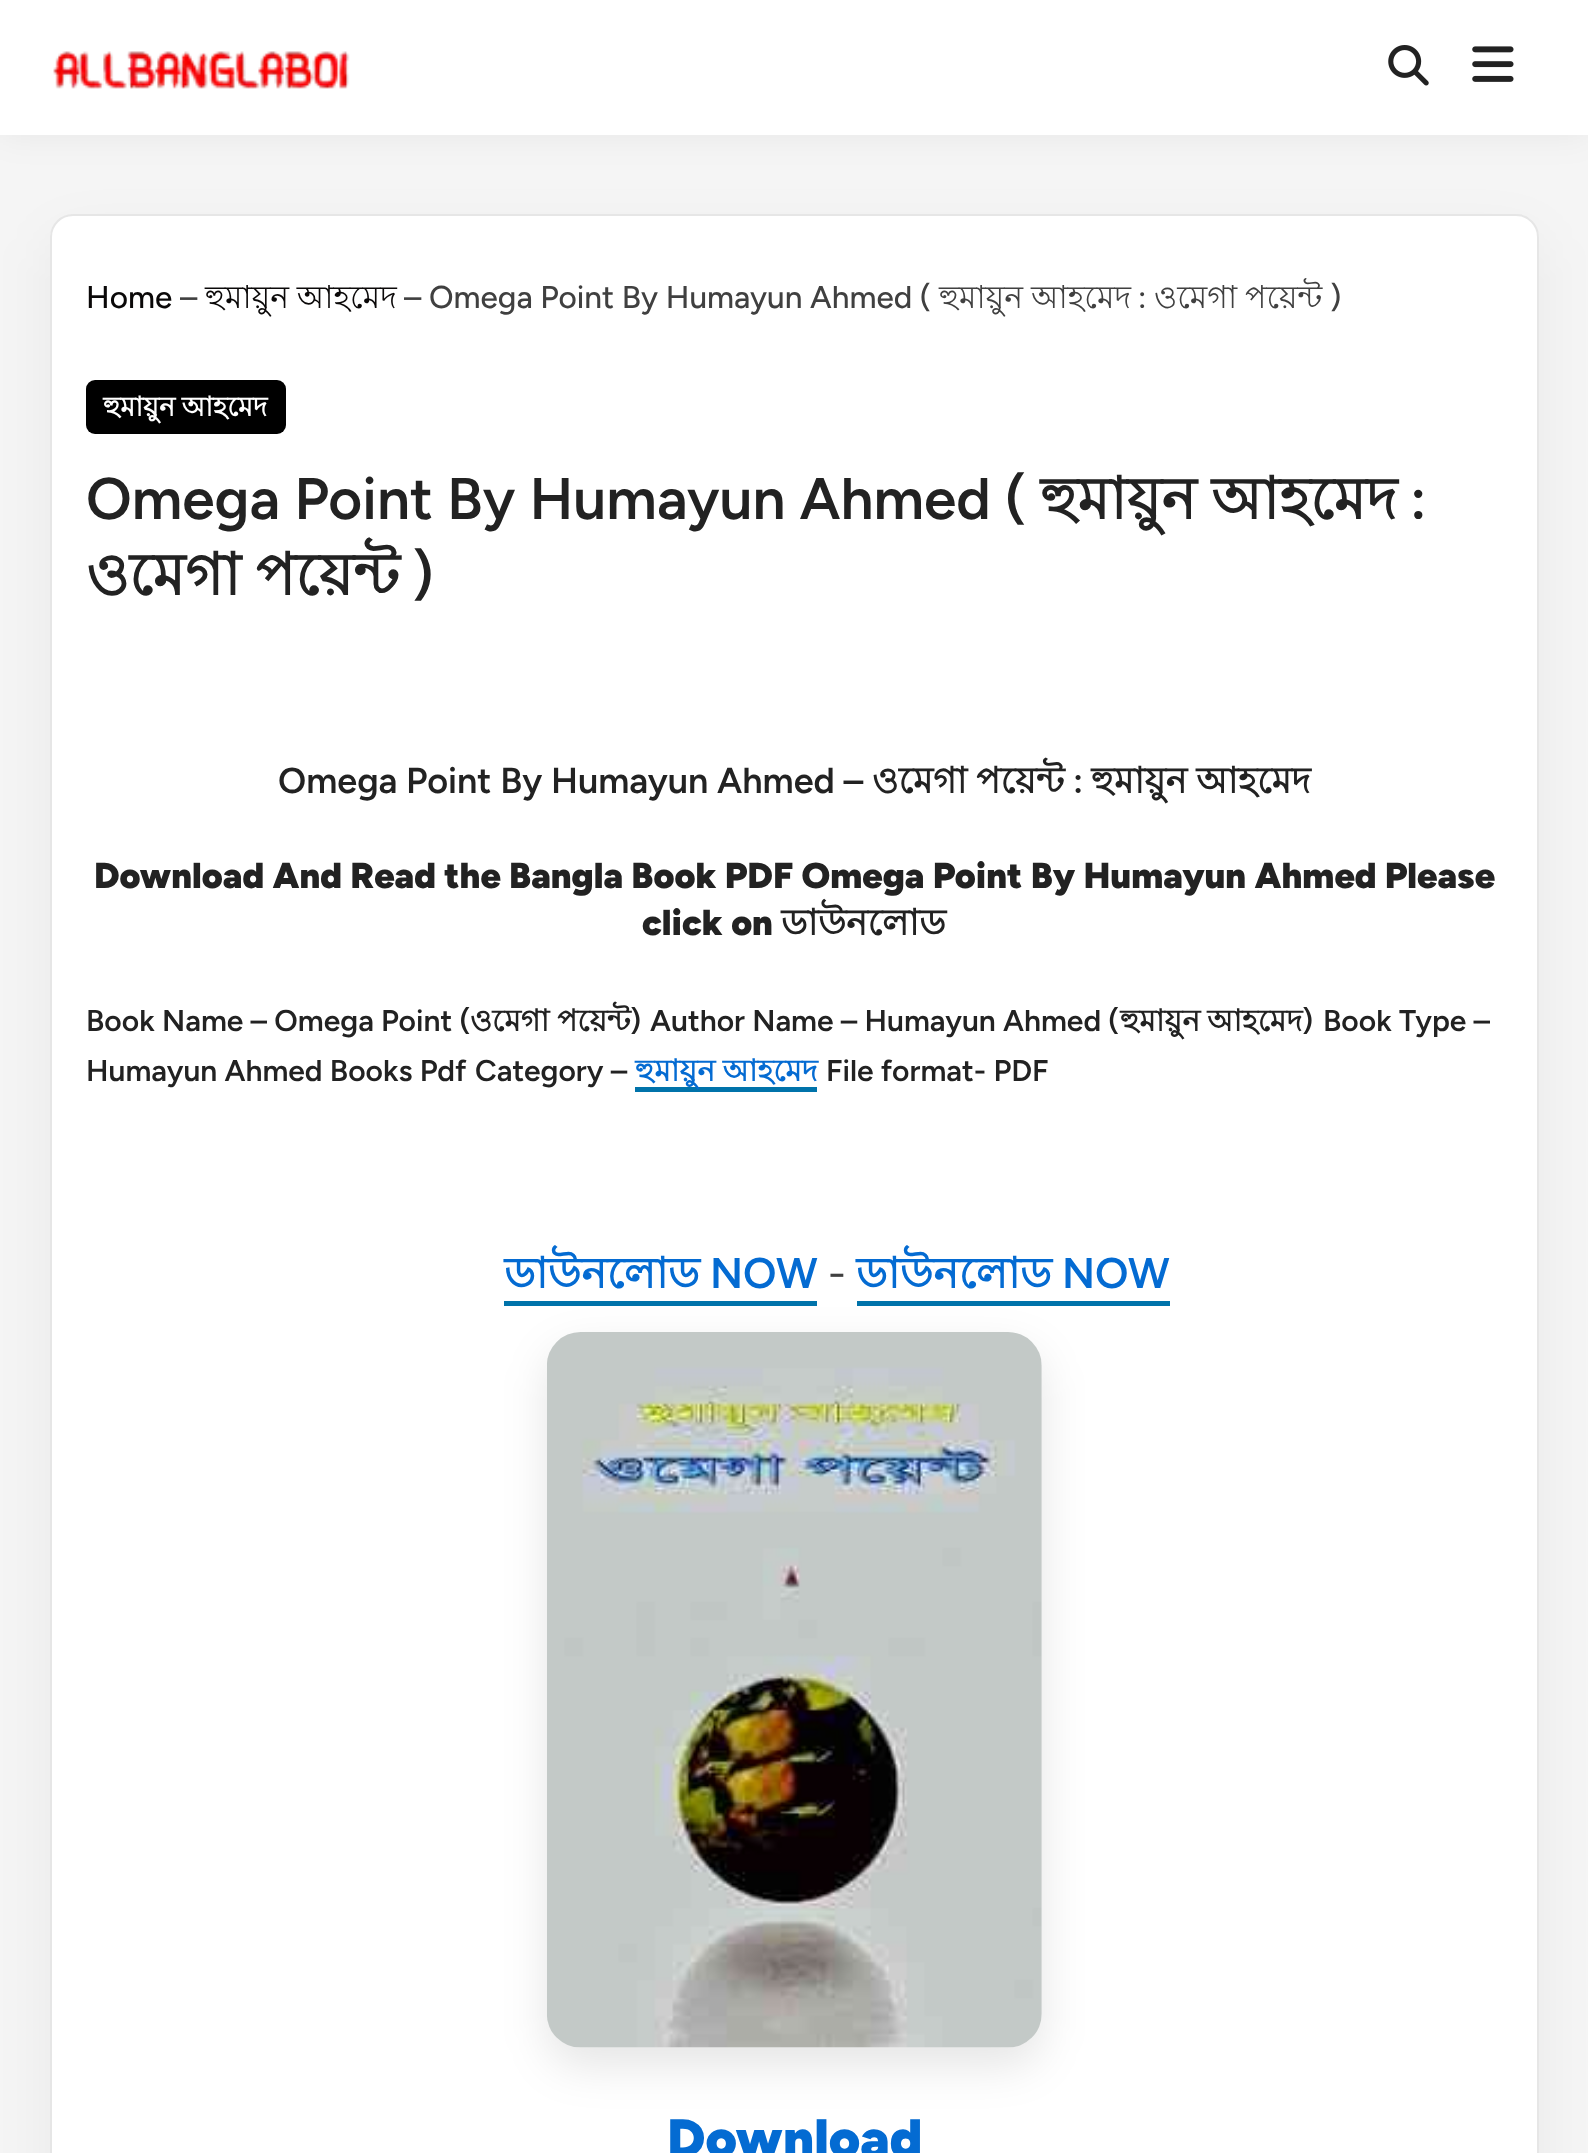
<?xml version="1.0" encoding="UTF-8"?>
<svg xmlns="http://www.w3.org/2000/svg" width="1588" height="2153">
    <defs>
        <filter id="blur1" x="-50%" y="-200%" width="200%" height="500%"><feGaussianBlur stdDeviation="17"/></filter>
        <filter id="blur2" x="-50%" y="-200%" width="200%" height="500%"><feGaussianBlur stdDeviation="28"/></filter>
        <filter id="blur3" x="-50%" y="-200%" width="200%" height="500%"><feGaussianBlur stdDeviation="22.5"/></filter>
    </defs>
    <rect width="100%" height="100%" fill="#F5F5F5"/>
    <rect x="0" y="0" width="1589" height="135" fill="#000000" fill-opacity="0.06" filter="url(#blur1)"/>
    <rect x="0" y="0" width="1588" height="135" fill="#FFFFFF"/>
    <image x="53" y="51" width="297" height="38" href="img_01.png"/>
    <image x="1388" y="45" width="41" height="41" href="img_02.png"/>
    <image x="1472" y="46" width="42" height="36" href="img_03.png"/>
    <rect x="50" y="236" width="1489" height="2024" rx="23" fill="#000000" fill-opacity="0.05" filter="url(#blur2)"/>
    <rect x="50" y="214" width="1489" height="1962" rx="23" fill="#FFFFFF"/>
    <rect x="51" y="215" width="1487" height="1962" rx="22" fill="none" stroke="#808080" stroke-opacity="0.2" stroke-width="2"/>
    <text x="86" y="308" font-family="Figtree" font-size="31.5" font-weight="500" fill="#0A0808">Home</text>
    <text x="180" y="308" font-family="Figtree" font-size="31.5" font-weight="500" fill="#404040">–</text>
    <text x="205" y="308" word-spacing="-1" font-family="Lohit Bengali" font-size="31.5" fill="#0A0808">হুমায়ুন আহমেদ</text>
    <text x="404" y="308" font-family="Figtree" font-size="31.5" font-weight="500" fill="#404040">– Omega Point By Humayun Ahmed (</text>
    <text x="939" y="308" font-family="Lohit Bengali" font-size="31.5" fill="#404040">হুমায়ুন</text>
    <text x="1031" y="308" font-family="Lohit Bengali" font-size="31.5" fill="#404040">আহমেদ</text>
    <text x="1138" y="308" font-family="Figtree" font-size="31.5" font-weight="500" fill="#404040">:</text>
    <text x="1154" y="308" font-family="Lohit Bengali" font-size="31.5" fill="#404040">ওমেগা</text>
    <text x="1245" y="308" font-family="Lohit Bengali" font-size="31.5" fill="#404040">পয়েন্ট</text>
    <text x="1330" y="308" font-family="Figtree" font-size="31.5" font-weight="500" fill="#404040">)</text>
    <rect x="86" y="380" width="200" height="54" rx="9" fill="#000000"/>
    <text x="103" y="416" word-spacing="-1" font-family="Lohit Bengali" font-size="27" font-weight="700" fill="#FFFFFF">হুমায়ুন আহমেদ</text>
    <text x="86" y="519" font-family="Figtree" font-size="58.5" font-weight="600" fill="#222222">Omega Point By Humayun Ahmed (</text>
    <text x="1040" y="519" font-family="Lohit Bengali" font-size="58.5" font-weight="700" fill="#222222">হুমায়ুন</text>
    <text x="1211" y="519" font-family="Lohit Bengali" font-size="58.5" font-weight="700" fill="#222222">আহমেদ</text>
    <text x="1410" y="519" font-family="Figtree" font-size="58.5" font-weight="600" fill="#222222">:</text>
    <text x="86" y="595" word-spacing="-1" font-family="Lohit Bengali" font-size="58.5" font-weight="700" fill="#222222">ওমেগা পয়েন্ট</text>
    <text x="412" y="595" font-family="Figtree" font-size="58.5" font-weight="600" fill="#222222">)</text>
    <text x="278" y="793" font-family="Figtree" font-size="36" font-weight="600" fill="#222222">Omega Point By Humayun Ahmed –</text>
    <text x="872" y="793" font-family="Lohit Bengali" font-size="36" font-weight="700" fill="#222222">ওমেগা</text>
    <text x="976" y="793" font-family="Lohit Bengali" font-size="36" font-weight="700" fill="#222222">পয়েন্ট</text>
    <text x="1073" y="793" font-family="Figtree" font-size="36" font-weight="600" fill="#222222">:</text>
    <text x="1091" y="793" word-spacing="-1" font-family="Lohit Bengali" font-size="36" font-weight="700" fill="#222222">হুমায়ুন আহমেদ</text>
    <text x="94" y="888" font-family="Figtree" font-size="36" font-weight="900" fill="#222222">Download And Read the Bangla Book PDF Omega Point By Humayun Ahmed Please</text>
    <text x="642" y="935" font-family="Figtree" font-size="36" font-weight="900" fill="#222222">click on</text>
    <text x="781" y="935" font-family="Lohit Bengali" font-size="36" font-weight="700" fill="#222222">ডাউনলোড</text>
    <text x="86" y="1031" font-family="Figtree" font-size="30" font-weight="600" fill="#222222">Book Name – Omega Point (</text>
    <text x="470" y="1031" font-family="Lohit Bengali" font-size="30" font-weight="700" fill="#222222">ওমেগা</text>
    <text x="557" y="1031" font-family="Lohit Bengali" font-size="30" font-weight="700" fill="#222222">পয়েন্ট</text>
    <text x="630" y="1031" font-family="Figtree" font-size="30" font-weight="600" fill="#222222">)</text>
    <text x="650" y="1031" font-family="Figtree" font-size="30" font-weight="600" fill="#222222">Author Name – Humayun Ahmed (</text>
    <text x="1120" y="1031" font-family="Lohit Bengali" font-size="30" font-weight="700" fill="#222222">হুমায়ুন</text>
    <text x="1207" y="1031" font-family="Lohit Bengali" font-size="30" font-weight="700" fill="#222222">আহমেদ</text>
    <text x="1302" y="1031" font-family="Figtree" font-size="30" font-weight="600" fill="#222222">)</text>
    <text x="1323" y="1031" font-family="Figtree" font-size="30" font-weight="600" fill="#222222">Book Type –</text>
    <text x="86" y="1081" font-family="Figtree" font-size="30" font-weight="600" fill="#222222">Humayun Ahmed Books Pdf</text>
    <text x="475" y="1081" font-family="Figtree" font-size="30" font-weight="600" fill="#222222">Category –</text>
    <rect x="635" y="1087" width="182" height="5" fill="#0073AA"/>
    <text x="635" y="1081" word-spacing="-1" font-family="Lohit Bengali" font-size="30" font-weight="700" fill="#046BD2">হুমায়ুন আহমেদ</text>
    <text x="826" y="1081" font-family="Figtree" font-size="30" font-weight="600" fill="#222222">File format- PDF</text>
    <text x="504" y="1288" font-family="Lohit Bengali" font-size="42.75" font-weight="700" fill="#046BD2">ডাউনলোড</text>
    <text x="710" y="1288" font-family="Figtree" font-size="42.75" font-weight="600" fill="#046BD2">NOW</text>
    <rect x="504" y="1301" width="313" height="5" fill="#0073AA"/>
    <text x="828" y="1288" font-family="Figtree" font-size="42.75" fill="#404040">-</text>
    <text x="856" y="1288" font-family="Lohit Bengali" font-size="42.75" font-weight="700" fill="#046BD2">ডাউনলোড</text>
    <text x="1062" y="1288" font-family="Figtree" font-size="42.75" font-weight="600" fill="#046BD2">NOW</text>
    <rect x="857" y="1301" width="313" height="5" fill="#0073AA"/>
    <rect x="547" y="1350" width="495" height="716" rx="34" fill="#000000" fill-opacity="0.1" filter="url(#blur3)"/>
    <image x="547" y="1332" width="495" height="716" href="img_04.png"/>
    <text x="667" y="2157" font-family="Figtree" font-size="54" font-weight="900" fill="#046BD2">Download</text>
</svg>
